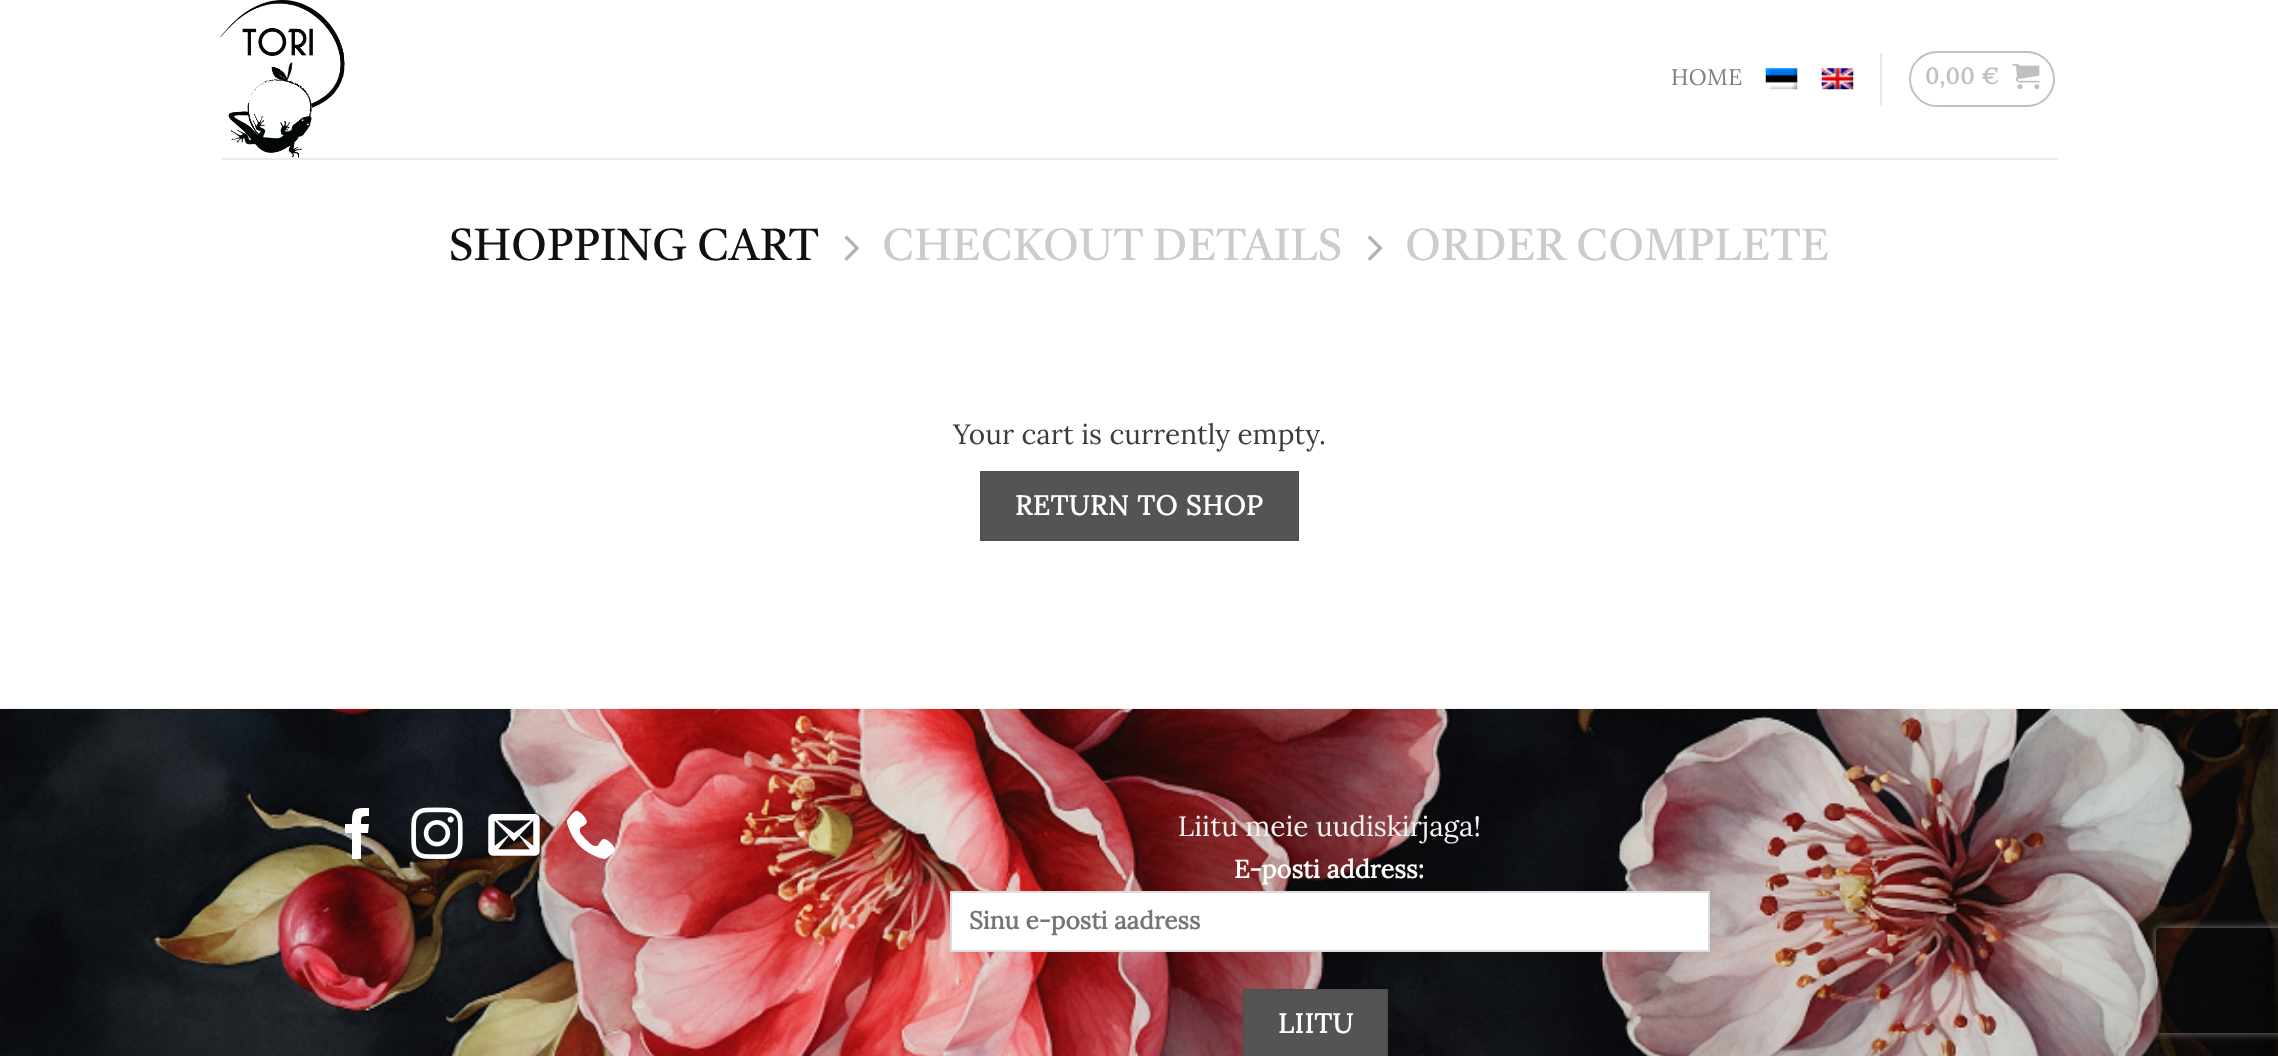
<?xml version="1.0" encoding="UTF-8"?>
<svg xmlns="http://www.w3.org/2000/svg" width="2278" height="1056">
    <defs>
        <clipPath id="clip1"><path d="M 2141 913 H 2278 V 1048 H 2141 Z M 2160 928 H 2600 C 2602 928 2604 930 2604 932 V 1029 C 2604 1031 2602 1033 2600 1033 H 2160 C 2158 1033 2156 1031 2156 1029 V 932 C 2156 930 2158 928 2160 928 Z" clip-rule="evenodd"/></clipPath>
        <filter id="blur1" x="-50%" y="-200%" width="200%" height="500%"><feGaussianBlur stdDeviation="4.5"/></filter>
    </defs>
    <rect width="100%" height="100%" fill="#FFFFFF"/>
    <image x="220" y="0" width="125" height="158" href="img_01.png"/>
    <text x="1671" y="85" font-family="Lora" font-size="22.5" letter-spacing="0.5" fill="#7D7D7D">HOME</text>
    <image x="1765" y="68" width="33" height="22" href="img_02.png"/>
    <image x="1821" y="68" width="33" height="22" href="img_03.png"/>
    <rect x="1880" y="53" width="2" height="52" fill="#E6E6E6"/>
    <rect x="1910" y="52" width="144" height="54" rx="27" fill="none" stroke="#C0C0C0" stroke-width="2"/>
    <text x="1925" y="84" font-family="Lora" font-size="22.5" font-weight="700" letter-spacing="0.75" fill="#C0C0C0">0,00 €</text>
    <image x="2012" y="64" width="28" height="26" href="img_04.png"/>
    <rect x="221" y="158" width="1837" height="2" fill="#ECEBEB"/>
    <text x="449" y="260" font-family="Castoro" font-size="44.75" fill="#111111">SHOPPING CART</text>
    <image x="844" y="235" width="15" height="26" href="img_05.png"/>
    <text x="882" y="260" font-family="Castoro" font-size="44.75" fill="#CCCCCC">CHECKOUT DETAILS</text>
    <image x="1368" y="235" width="15" height="26" href="img_06.png"/>
    <text x="1405" y="260" font-family="Castoro" font-size="44.75" fill="#CCCCCC">ORDER COMPLETE</text>
    <text x="953" y="444" font-family="Lora" font-size="28" fill="#3E3B3B">Your cart is currently empty.</text>
    <rect x="981" y="472" width="317" height="68" fill="#545454" stroke="#505050" stroke-width="2"/>
    <text x="1015" y="515" font-family="Lora" font-size="27.25" font-weight="700" letter-spacing="0.75" fill="#FFFFFF">RETURN TO SHOP</text>
    <image x="0" y="708" width="2278" height="348" href="img_07.png"/>
    <path d="M 361 859 H 352 V 833 H 345 V 824 H 352 C 352 808 354 808 369 808 V 816 C 361 816 361 816 361 824 H 369 L 368 833 H 361 Z" fill="#FFFFFF"/>
    <image x="411" y="807" width="52" height="52" href="img_08.png"/>
    <image x="488" y="814" width="52" height="42" href="img_09.png"/>
    <image x="566" y="810" width="49" height="49" href="img_10.png"/>
    <text x="1178" y="836" font-family="Lora" font-size="28" fill="#F1F1F1">Liitu meie uudiskirjaga!</text>
    <text x="1234" y="878" font-family="Lora" font-size="25.25" font-weight="700" fill="#FFFFFF">E-posti address:</text>
    <rect x="951" y="892" width="758" height="59" fill="#FFFFFF" stroke="#DDDDDD" stroke-width="2"/>
    <text x="969" y="929" font-family="Lora" font-size="24.5" font-weight="700" fill="#757575">Sinu e-posti aadress</text>
    <rect x="1244" y="990" width="143" height="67" fill="#545454" stroke="#505050" stroke-width="2"/>
    <text x="1278" y="1033" font-family="Lora" font-size="27.25" font-weight="700" letter-spacing="0.75" fill="#FFFFFF">LIITU</text>
    <g clip-path="url(#clip1)">
        <rect x="2156" y="928" width="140" height="105" rx="4" fill="#808080" filter="url(#blur1)"/>
    </g>
</svg>
